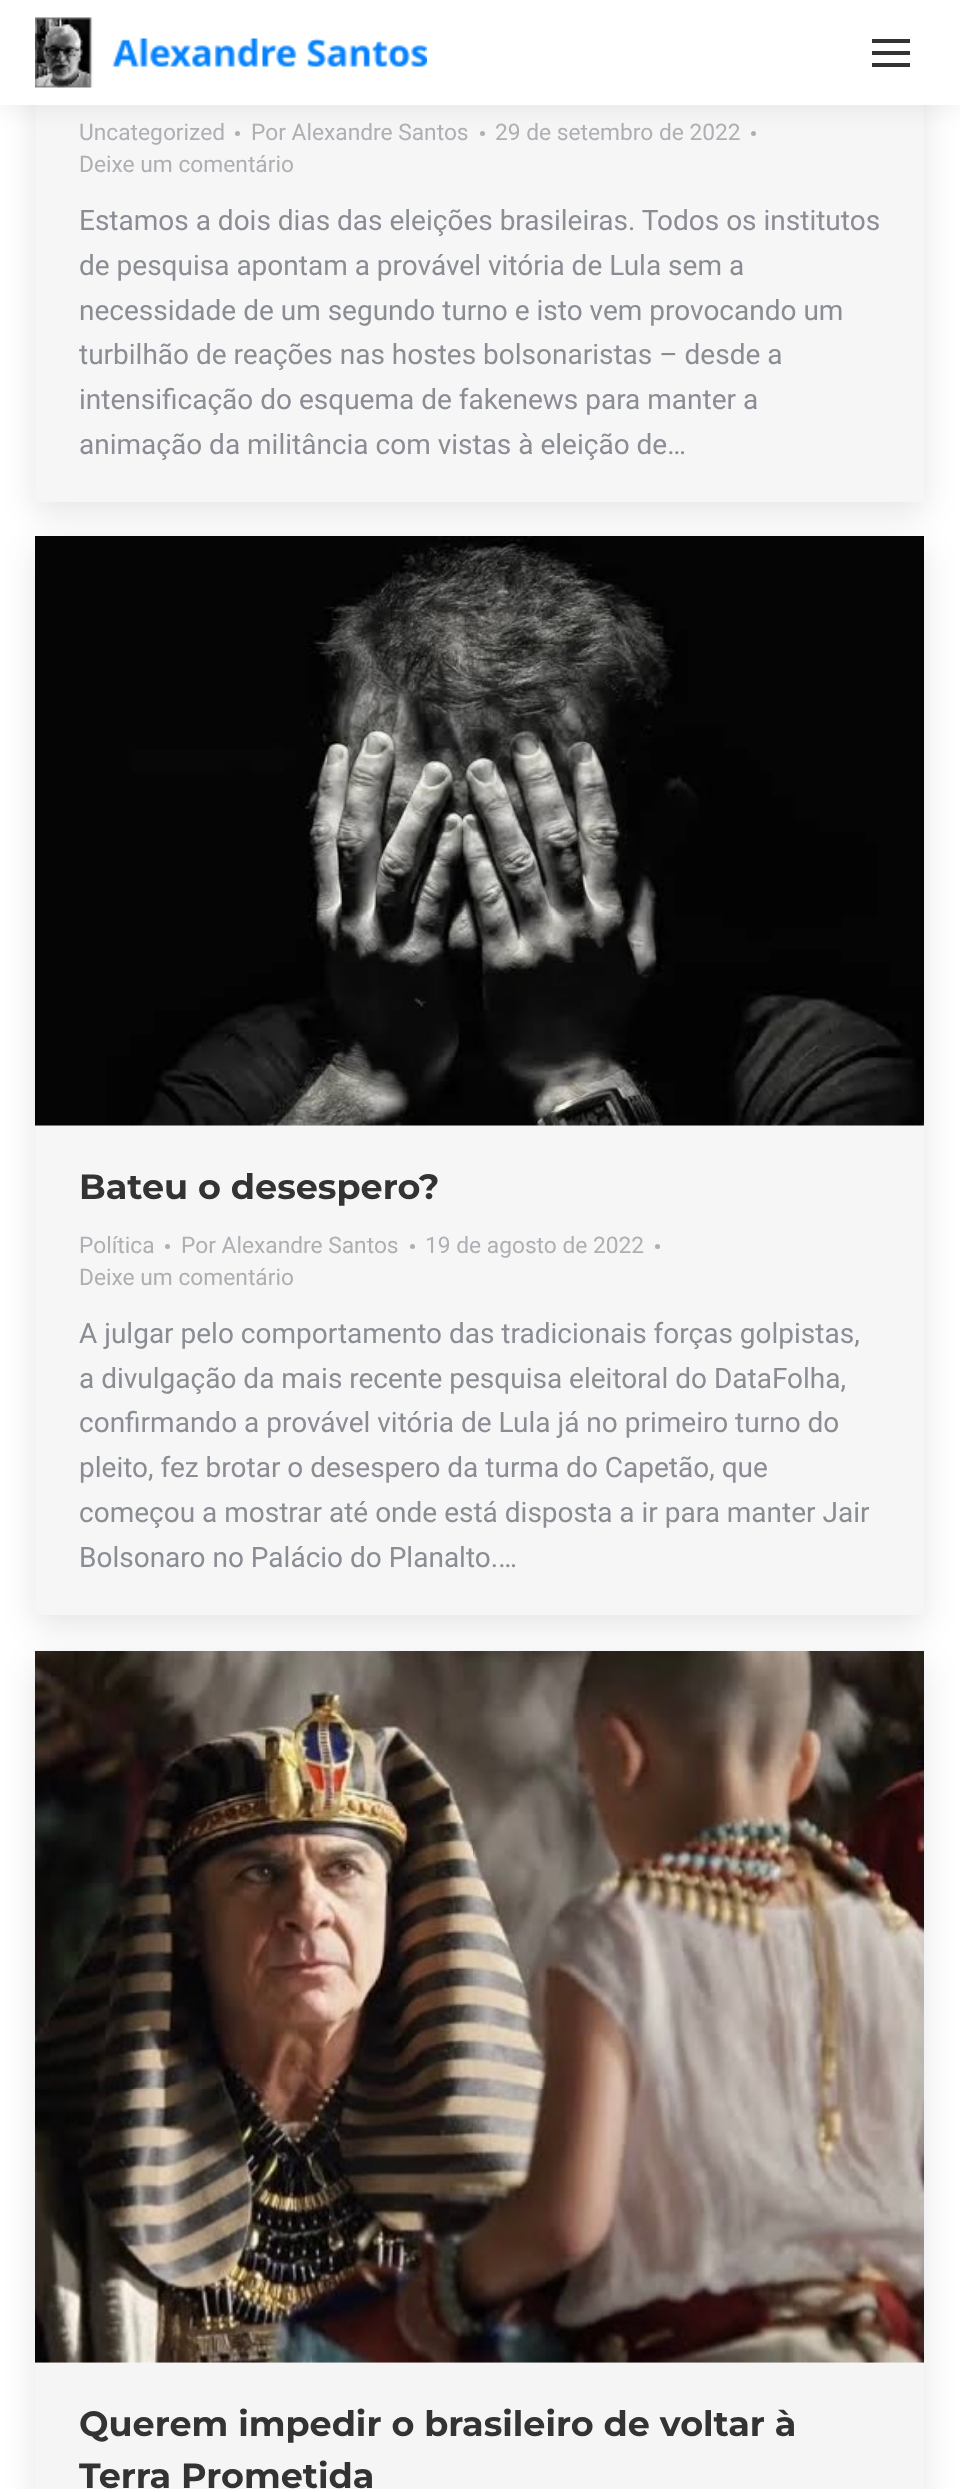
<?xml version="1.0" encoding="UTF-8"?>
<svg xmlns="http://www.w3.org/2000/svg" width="960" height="2489">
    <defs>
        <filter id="blur1" x="-50%" y="-200%" width="200%" height="500%"><feGaussianBlur stdDeviation="16"/></filter>
        <filter id="blur2" x="-50%" y="-200%" width="200%" height="500%"><feGaussianBlur stdDeviation="13"/></filter>
        <clipPath id="clip1"><path d="M 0 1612 H 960 V 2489 H 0 Z M 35 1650 H 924 V 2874 H 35 Z" clip-rule="evenodd"/></clipPath>
    </defs>
    <rect width="100%" height="100%" fill="#FFFFFF"/>
    <rect x="35" y="23" width="889" height="490" fill="#000000" fill-opacity="0.1" filter="url(#blur1)"/>
    <rect x="35" y="105" width="889" height="397" fill="#F6F6F6"/>
    <circle cx="237.5" cy="133.5" r="2.5" fill="#ADAFB3"/>
    <circle cx="482.5" cy="133.5" r="2.5" fill="#ADAFB3"/>
    <circle cx="753.5" cy="133.5" r="2.5" fill="#ADAFB3"/>
    <rect x="-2" y="-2" width="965" height="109" fill="#000000" fill-opacity="0.07" filter="url(#blur2)"/>
    <rect x="0" y="0" width="960" height="105" fill="#FFFFFF"/>
    <image x="35" y="17" width="392" height="71" href="img_01.png"/>
    <rect x="872" y="39" width="38" height="4" fill="#333333"/>
    <rect x="872" y="51" width="38" height="4" fill="#333333"/>
    <rect x="872" y="63" width="38" height="4" fill="#333333"/>
    <text x="79" y="140" font-family="Roboto" font-size="22.75" fill="#ADAFB3">Uncategorized</text>
    <text x="251" y="140" font-family="Roboto" font-size="22.75" fill="#ADAFB3">Por Alexandre Santos</text>
    <text x="495" y="140" font-family="Roboto" font-size="22.75" fill="#ADAFB3">29 de setembro de 2022</text>
    <text x="79" y="172" font-family="Roboto" font-size="22.75" fill="#ADAFB3">Deixe um comentário</text>
    <text font-family="Roboto" font-size="28" fill="#8B8D94">
        <tspan x="79" y="230">Estamos a dois dias das eleições brasileiras. Todos os institutos</tspan>
        <tspan x="79" y="275">de pesquisa apontam a provável vitória de Lula sem a</tspan>
        <tspan x="79" y="320">necessidade de um segundo turno e isto vem provocando um</tspan>
        <tspan x="79" y="364">turbilhão de reações nas hostes bolsonaristas – desde a</tspan>
        <tspan x="79" y="409">intensificação do esquema de fakenews para manter a</tspan>
        <tspan x="79" y="454">animação da militância com vistas à eleição de…</tspan>
    </text>
    <rect x="35" y="546" width="889" height="1080" fill="#000000" fill-opacity="0.1" filter="url(#blur1)"/>
    <rect x="35" y="1125" width="889" height="490" fill="#F6F6F6"/>
    <image x="35" y="536" width="889" height="590" href="img_02.png"/>
    <text x="79" y="1199" font-family="Montserrat" font-size="35" font-weight="700" fill="#333333">Bateu o desespero?</text>
    <text x="79" y="1253" font-family="Roboto" font-size="22.75" fill="#ADAFB3">Política</text>
    <circle cx="167.5" cy="1246.5" r="2.5" fill="#ADAFB3"/>
    <text x="181" y="1253" font-family="Roboto" font-size="22.75" fill="#ADAFB3">Por Alexandre Santos</text>
    <circle cx="412.5" cy="1246.5" r="2.5" fill="#ADAFB3"/>
    <text x="425" y="1253" font-family="Roboto" font-size="22.75" fill="#ADAFB3">19 de agosto de 2022</text>
    <circle cx="657.5" cy="1246.5" r="2.5" fill="#ADAFB3"/>
    <text x="79" y="1285" font-family="Roboto" font-size="22.75" fill="#ADAFB3">Deixe um comentário</text>
    <text font-family="Roboto" font-size="28" fill="#8B8D94">
        <tspan x="79" y="1343">A julgar pelo comportamento das tradicionais forças golpistas,</tspan>
        <tspan x="79" y="1388">a divulgação da mais recente pesquisa eleitoral do DataFolha,</tspan>
        <tspan x="79" y="1432">confirmando a provável vitória de Lula já no primeiro turno do</tspan>
        <tspan x="79" y="1477">pleito, fez brotar o desespero da turma do Capetão, que</tspan>
        <tspan x="79" y="1522">começou a mostrar até onde está disposta a ir para manter Jair</tspan>
        <tspan x="79" y="1567">Bolsonaro no Palácio do Planalto.…</tspan>
    </text>
    <g clip-path="url(#clip1)">
        <rect x="35" y="1661" width="889" height="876" fill="#000000" fill-opacity="0.1" filter="url(#blur1)"/>
    </g>
    <rect x="35" y="1650" width="889" height="839" fill="#000000" fill-opacity="0.04"/>
    <image x="35" y="1651" width="889" height="712" href="img_03.png"/>
    <text font-family="Montserrat" font-size="35" font-weight="700" fill="#333333">
        <tspan x="79" y="2436">Querem impedir o brasileiro de voltar à</tspan>
        <tspan x="79" y="2488">Terra Prometida</tspan>
    </text>
</svg>
